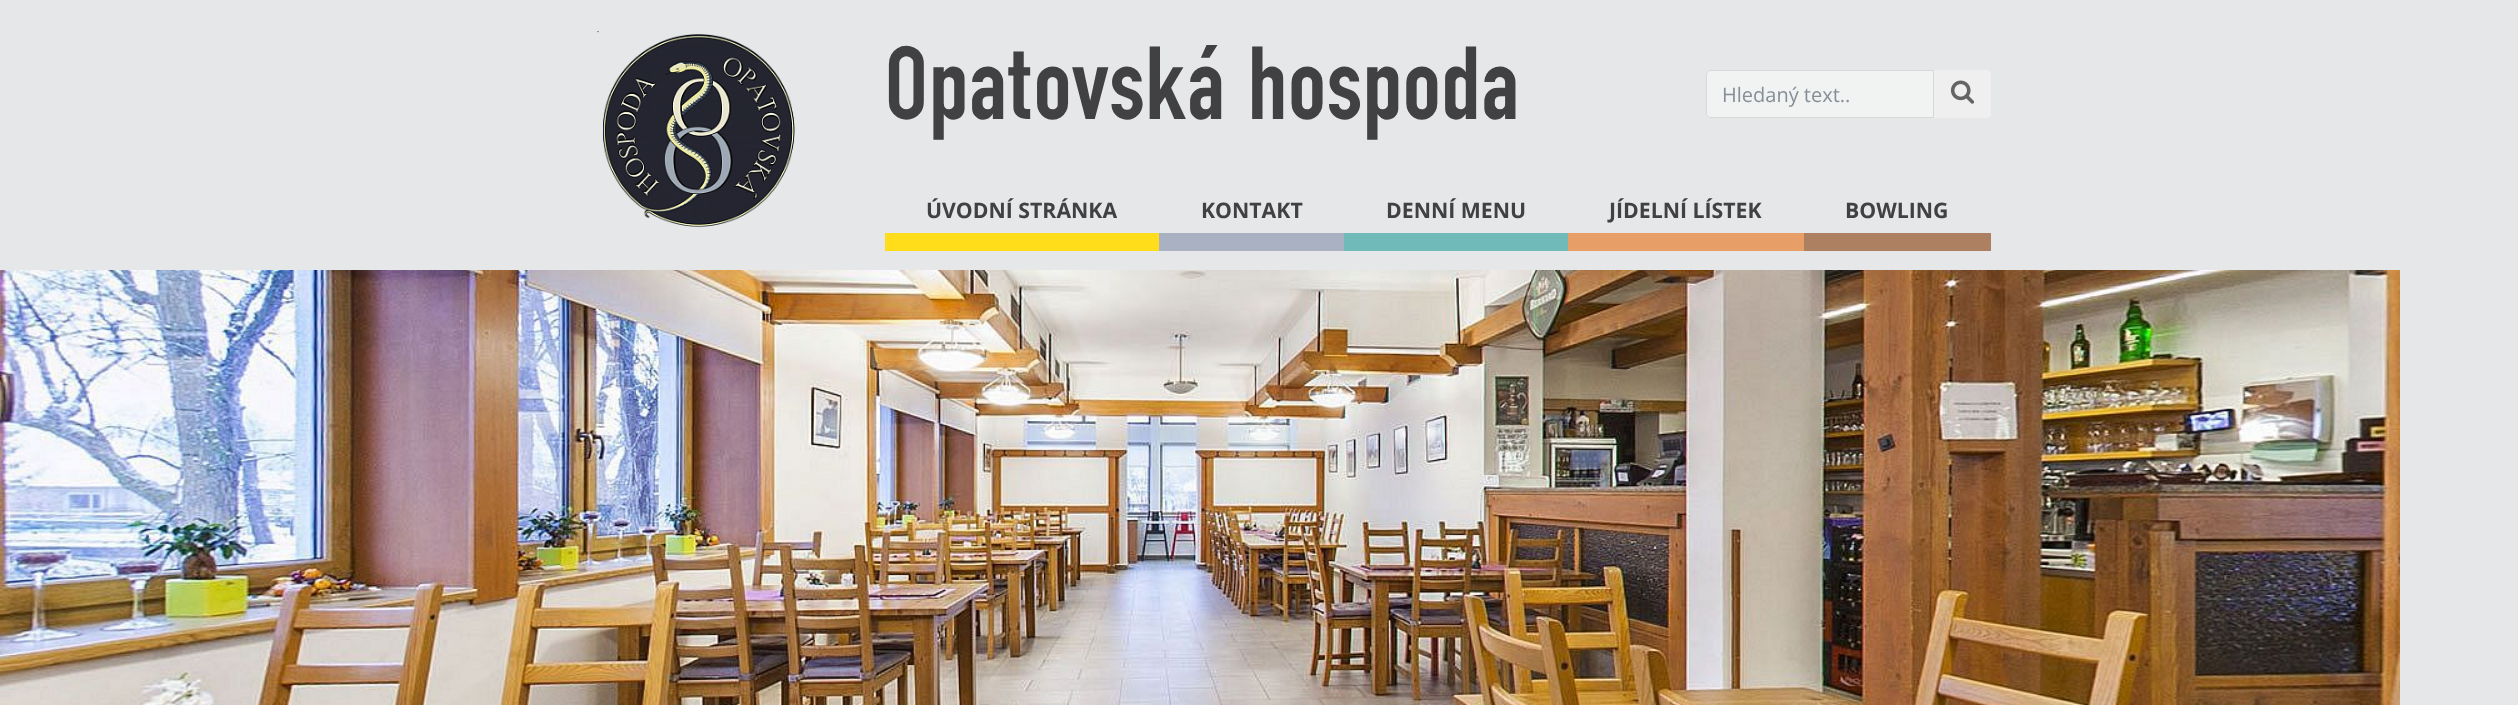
<?xml version="1.0" encoding="UTF-8"?>
<svg xmlns="http://www.w3.org/2000/svg" width="2518" height="705">
    <rect width="100%" height="100%" fill="#E6E7E8"/>
    <image x="597" y="31" width="198" height="196" href="img_01.png"/>
    <text x="884" y="119" font-family="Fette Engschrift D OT" font-size="108.75" fill="#414042">Opatovská hospoda</text>
    <path d="M 1711 70 H 1934 V 118 H 1711 C 1708 118 1706 116 1706 113 V 75 C 1706 72 1708 70 1711 70 Z" fill="#F1F2F2"/>
    <path d="M 1711 70.5 H 1933.5 V 117.5 H 1711 C 1708.5 117.5 1706.5 115.5 1706.5 113 V 75 C 1706.5 72.5 1708.5 70.5 1711 70.5 Z" fill="none" stroke="#414042" stroke-opacity="0.15"/>
    <text x="1722" y="102" font-family="Open Sans" font-size="20" fill="#868E96">Hledaný text..</text>
    <path d="M 1934 70 H 1986 C 1989 70 1991 72 1991 75 V 113 C 1991 116 1989 118 1986 118 H 1934 Z" fill="#EFEFEF"/>
    <image x="1950" y="80" width="25" height="24" href="img_02.png"/>
    <rect x="885" y="233" width="274" height="18" fill="#FFDD1B"/>
    <text x="926" y="218" font-family="Open Sans" font-size="21.25" font-weight="700" fill="#414042">ÚVODNÍ STRÁNKA</text>
    <rect x="1159" y="233" width="185" height="18" fill="#A9B1C3"/>
    <text x="1201" y="218" font-family="Open Sans" font-size="21.25" font-weight="700" fill="#414042">KONTAKT</text>
    <rect x="1344" y="233" width="224" height="18" fill="#70BBB9"/>
    <text x="1386" y="218" font-family="Open Sans" font-size="21.25" font-weight="700" fill="#414042">DENNÍ MENU</text>
    <rect x="1568" y="233" width="236" height="18" fill="#E89F67"/>
    <text x="1609" y="218" font-family="Open Sans" font-size="21.25" font-weight="700" fill="#414042">JÍDELNÍ LÍSTEK</text>
    <rect x="1804" y="233" width="187" height="18" fill="#AD8062"/>
    <text x="1845" y="218" font-family="Open Sans" font-size="21.25" font-weight="700" fill="#414042">BOWLING</text>
    <image x="0" y="270" width="2400" height="435" href="img_03.png"/>
</svg>
